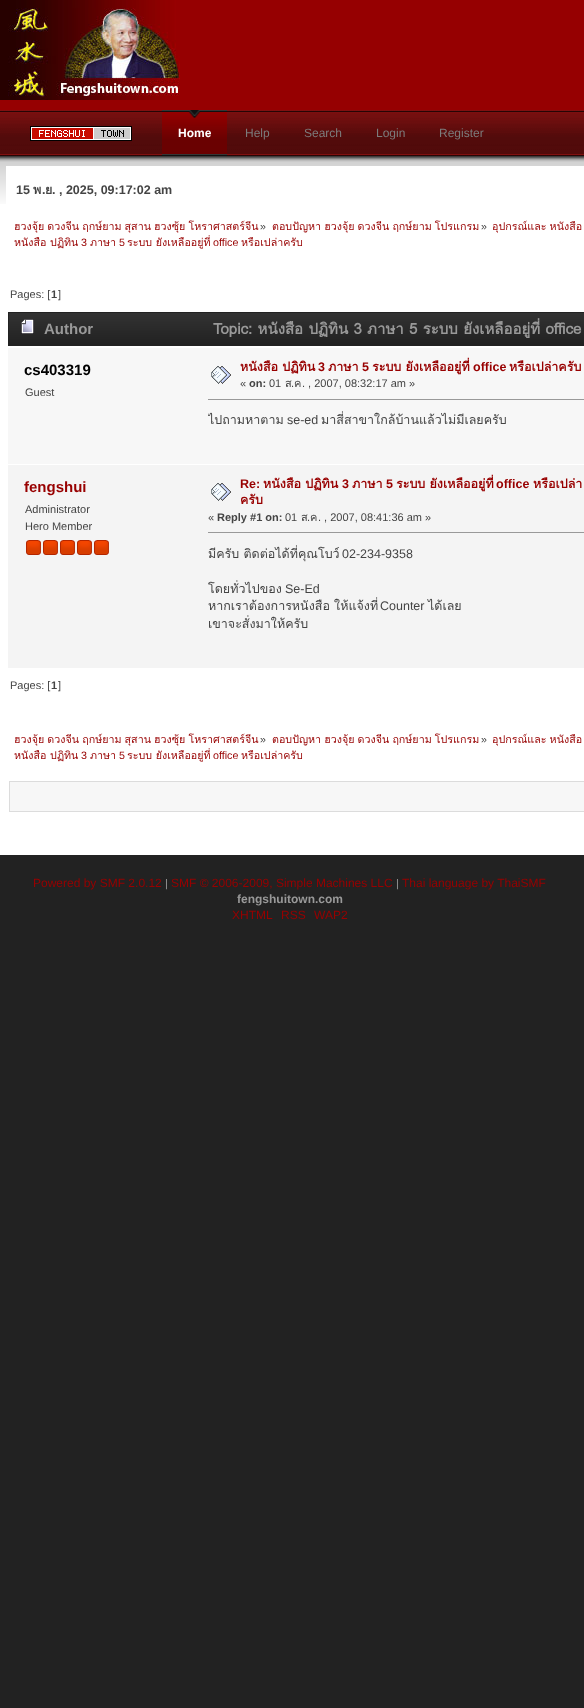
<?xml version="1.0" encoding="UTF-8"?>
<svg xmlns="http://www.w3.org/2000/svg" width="584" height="1708">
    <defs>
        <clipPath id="clip1"><rect x="208" y="397" width="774" height="36"/></clipPath>
        <clipPath id="clip2"><rect x="208" y="531" width="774" height="105"/></clipPath>
    </defs>
    <rect width="100%" height="100%" fill="#222222"/>
    <rect x="0" y="0" width="584" height="110" fill="#960001"/>
    <image x="0" y="0" width="180" height="100" href="img_01.png"/>
    <image x="0" y="110" width="584" height="46" href="img_02.png"/>
    <image x="30" y="126" width="102" height="15" href="img_03.png"/>
    <image x="162" y="110" width="65" height="46" href="img_04.png"/>
    <text x="178" y="137" font-family="Liberation Sans" font-size="12" font-weight="700" fill="#FFFFFF">Home</text>
    <text x="245" y="137" font-family="Liberation Sans" font-size="12" fill="#7C7C7C">Help</text>
    <text x="304" y="137" font-family="Liberation Sans" font-size="12" fill="#7C7C7C">Search</text>
    <text x="376" y="137" font-family="Liberation Sans" font-size="12" fill="#7C7C7C">Login</text>
    <text x="439" y="137" font-family="Liberation Sans" font-size="12" fill="#7C7C7C">Register</text>
    <rect x="0" y="204" width="584" height="651" fill="#FFFFFF"/>
    <image x="0" y="156" width="584" height="48" href="img_05.png"/>
    <rect x="6" y="166" width="578" height="38" fill="#FFFFFF"/>
    <text x="16" y="194" font-family="Liberation Sans" font-size="12.5" font-weight="700" fill="#444444">15</text>
    <text x="33" y="194" font-family="Loma" font-size="12.5" font-weight="700" fill="#444444">พ</text>
    <text x="42" y="194" font-family="Liberation Sans" font-size="12.5" font-weight="700" fill="#444444">.</text>
    <text x="45" y="194" font-family="Loma" font-size="12.5" font-weight="700" fill="#444444">ย</text>
    <text x="52" y="194" font-family="Liberation Sans" font-size="12.5" font-weight="700" fill="#444444">. , 2025, 09:17:02 am</text>
    <text x="14" y="230" word-spacing="-0.5" font-family="Loma" font-size="10.7" fill="#980000">ฮวงจุ้ย ดวงจีน ฤกษ์ยาม สุสาน ฮวงซุ้ย โหราศาสตร์จีน</text>
    <text x="260" y="230" font-family="Liberation Sans" font-size="10.7" fill="#444444">»</text>
    <text x="272" y="230" word-spacing="-0.5" font-family="Loma" font-size="10.7" fill="#980000">ตอบปัญหา ฮวงจุ้ย ดวงจีน ฤกษ์ยาม โปรแกรม</text>
    <text x="481" y="230" font-family="Liberation Sans" font-size="10.7" fill="#444444">»</text>
    <text x="492" y="230" word-spacing="-0.5" font-family="Loma" font-size="10.7" fill="#980000">อุปกรณ์และ หนังสือ</text>
    <text x="14" y="246" font-family="Loma" font-size="10.7" fill="#980000">หนังสือ ปฏิทิน</text>
    <text x="81" y="246" font-family="Liberation Sans" font-size="10.7" fill="#980000">3</text>
    <text x="90" y="246" font-family="Loma" font-size="10.7" fill="#980000">ภาษา</text>
    <text x="119" y="246" font-family="Liberation Sans" font-size="10.7" fill="#980000">5</text>
    <text x="127" y="246" font-family="Loma" font-size="10.7" fill="#980000">ระบบ ยังเหลืออยู่ที่</text>
    <text x="213" y="246" font-family="Liberation Sans" font-size="10.7" fill="#980000">office</text>
    <text x="241" y="246" font-family="Loma" font-size="10.7" fill="#980000">หรือเปล่าครับ</text>
    <text x="10" y="298" font-family="Liberation Sans" font-size="11" fill="#444444">Pages: [</text>
    <text x="51" y="298" font-family="Liberation Sans" font-size="11" font-weight="700" fill="#444444">1</text>
    <text x="58" y="298" font-family="Liberation Sans" font-size="11" fill="#444444">]</text>
    <image x="8" y="312" width="576" height="34" href="img_06.png"/>
    <image x="21" y="319" width="13" height="15" href="img_07.png"/>
    <text x="44" y="334" font-family="Liberation Sans" font-size="15" font-weight="700" fill="#999999">Author</text>
    <text x="213" y="334" word-spacing="0.25" font-family="Loma" font-size="15" font-weight="700" fill="#999999">Topic: หนังสือ ปฏิทิน 3 ภาษา 5 ระบบ ยังเหลืออยู่ที่ office</text>
    <rect x="8" y="348" width="576" height="116" fill="#F7F7F7"/>
    <text x="24" y="375" font-family="Liberation Sans" font-size="15" font-weight="700" fill="#000000">cs403319</text>
    <text x="25" y="396" font-family="Liberation Sans" font-size="11" fill="#444444">Guest</text>
    <image x="211" y="366" width="20" height="18" href="img_08.png"/>
    <text x="240" y="371" font-family="Loma" font-size="12.5" font-weight="700" fill="#980000">หนังสือ ปฏิทิน</text>
    <text x="318" y="371" font-family="Liberation Sans" font-size="12.5" font-weight="700" fill="#980000">3</text>
    <text x="328" y="371" font-family="Loma" font-size="12.5" font-weight="700" fill="#980000">ภาษา</text>
    <text x="362" y="371" font-family="Liberation Sans" font-size="12.5" font-weight="700" fill="#980000">5</text>
    <text x="372" y="371" font-family="Loma" font-size="12.5" font-weight="700" fill="#980000">ระบบ ยังเหลืออยู่ที่</text>
    <text x="473" y="371" font-family="Liberation Sans" font-size="12.5" font-weight="700" fill="#980000">office</text>
    <text x="509" y="371" font-family="Loma" font-size="12.5" font-weight="700" fill="#980000">หรือเปล่าครับ</text>
    <text x="240" y="387" font-family="Liberation Sans" font-size="11" fill="#444444">«</text>
    <text x="249" y="387" font-family="Liberation Sans" font-size="11" font-weight="700" fill="#444444">on:</text>
    <text x="269" y="387" font-family="Liberation Sans" font-size="11" fill="#444444">01</text>
    <text x="285" y="387" font-family="Loma" font-size="11" fill="#444444">ส</text>
    <text x="291" y="387" font-family="Liberation Sans" font-size="11" fill="#444444">.</text>
    <text x="294" y="387" font-family="Loma" font-size="11" fill="#444444">ค</text>
    <text x="302" y="387" font-family="Liberation Sans" font-size="11" fill="#444444">. , 2007, 08:32:17 am »</text>
    <rect x="208" y="399" width="376" height="1" fill="#999999"/>
    <g clip-path="url(#clip1)">
        <text x="208" y="424" font-family="Loma" font-size="12.5" fill="#444444">ไปถามหาตาม</text>
    </g>
    <text x="287" y="424" font-family="Liberation Sans" font-size="12.5" fill="#444444">se-ed</text>
    <text x="321" y="424" font-family="Loma" font-size="12.5" fill="#444444">มาสี่สาขาใกล้บ้านแล้วไม่มีเลยครับ</text>
    <rect x="8" y="465" width="576" height="203" fill="#F4F4F4"/>
    <text x="24" y="492" font-family="Liberation Sans" font-size="15" font-weight="700" fill="#980000">fengshui</text>
    <text font-family="Liberation Sans" font-size="11" fill="#444444">
        <tspan x="25" y="513">Administrator</tspan>
        <tspan x="25" y="530">Hero Member</tspan>
    </text>
    <image x="26" y="540" width="15" height="15" href="img_09.png"/>
    <image x="43" y="540" width="15" height="15" href="img_09.png"/>
    <image x="60" y="540" width="15" height="15" href="img_09.png"/>
    <image x="77" y="540" width="15" height="15" href="img_09.png"/>
    <image x="94" y="540" width="15" height="15" href="img_09.png"/>
    <image x="211" y="483" width="20" height="18" href="img_10.png"/>
    <text x="240" y="488" font-family="Liberation Sans" font-size="12.5" font-weight="700" fill="#980000">Re:</text>
    <text x="263" y="488" font-family="Loma" font-size="12.5" font-weight="700" fill="#980000">หนังสือ ปฏิทิน</text>
    <text x="342" y="488" font-family="Liberation Sans" font-size="12.5" font-weight="700" fill="#980000">3</text>
    <text x="352" y="488" font-family="Loma" font-size="12.5" font-weight="700" fill="#980000">ภาษา</text>
    <text x="386" y="488" font-family="Liberation Sans" font-size="12.5" font-weight="700" fill="#980000">5</text>
    <text x="396" y="488" font-family="Loma" font-size="12.5" font-weight="700" fill="#980000">ระบบ ยังเหลืออยู่ที่</text>
    <text x="496" y="488" font-family="Liberation Sans" font-size="12.5" font-weight="700" fill="#980000">office</text>
    <text x="533" y="488" font-family="Loma" font-size="12.5" font-weight="700" fill="#980000">หรือเปล่า</text>
    <text x="240" y="504" font-family="Loma" font-size="12.5" font-weight="700" fill="#980000">ครับ</text>
    <text x="208" y="521" font-family="Liberation Sans" font-size="11" fill="#444444">«</text>
    <text x="217" y="521" font-family="Liberation Sans" font-size="11" font-weight="700" fill="#444444">Reply #1 on:</text>
    <text x="285" y="521" font-family="Liberation Sans" font-size="11" fill="#444444">01</text>
    <text x="301" y="521" font-family="Loma" font-size="11" fill="#444444">ส</text>
    <text x="307" y="521" font-family="Liberation Sans" font-size="11" fill="#444444">.</text>
    <text x="310" y="521" font-family="Loma" font-size="11" fill="#444444">ค</text>
    <text x="318" y="521" font-family="Liberation Sans" font-size="11" fill="#444444">. , 2007, 08:41:36 am »</text>
    <rect x="208" y="532" width="376" height="1" fill="#999999"/>
    <g clip-path="url(#clip2)">
        <text x="208" y="558" font-family="Loma" font-size="12.5" fill="#444444">มีครับ ติดต่อได้ที่คุณโบว์</text>
    </g>
    <text x="342" y="558" font-family="Liberation Sans" font-size="12.5" fill="#444444">02-234-9358</text>
    <text x="208" y="593" font-family="Loma" font-size="12.5" fill="#444444">โดยทั่วไปของ</text>
    <text x="285" y="593" font-family="Liberation Sans" font-size="12.5" fill="#444444">Se-Ed</text>
    <text x="208" y="610" font-family="Loma" font-size="12.5" fill="#444444">หากเราต้องการหนังสือ ให้แจ้งที่</text>
    <text x="380" y="610" font-family="Liberation Sans" font-size="12.5" fill="#444444">Counter</text>
    <text x="428" y="610" font-family="Loma" font-size="12.5" fill="#444444">ได้เลย</text>
    <text x="208" y="628" font-family="Loma" font-size="12.5" fill="#444444">เขาจะสั่งมาให้ครับ</text>
    <text x="10" y="689" font-family="Liberation Sans" font-size="11" fill="#444444">Pages: [</text>
    <text x="51" y="689" font-family="Liberation Sans" font-size="11" font-weight="700" fill="#444444">1</text>
    <text x="58" y="689" font-family="Liberation Sans" font-size="11" fill="#444444">]</text>
    <text x="14" y="743" word-spacing="-0.5" font-family="Loma" font-size="10.7" fill="#980000">ฮวงจุ้ย ดวงจีน ฤกษ์ยาม สุสาน ฮวงซุ้ย โหราศาสตร์จีน</text>
    <text x="260" y="743" font-family="Liberation Sans" font-size="10.7" fill="#444444">»</text>
    <text x="272" y="743" word-spacing="-0.5" font-family="Loma" font-size="10.7" fill="#980000">ตอบปัญหา ฮวงจุ้ย ดวงจีน ฤกษ์ยาม โปรแกรม</text>
    <text x="481" y="743" font-family="Liberation Sans" font-size="10.7" fill="#444444">»</text>
    <text x="492" y="743" word-spacing="-0.5" font-family="Loma" font-size="10.7" fill="#980000">อุปกรณ์และ หนังสือ</text>
    <text x="14" y="759" font-family="Loma" font-size="10.7" fill="#980000">หนังสือ ปฏิทิน</text>
    <text x="81" y="759" font-family="Liberation Sans" font-size="10.7" fill="#980000">3</text>
    <text x="90" y="759" font-family="Loma" font-size="10.7" fill="#980000">ภาษา</text>
    <text x="119" y="759" font-family="Liberation Sans" font-size="10.7" fill="#980000">5</text>
    <text x="127" y="759" font-family="Loma" font-size="10.7" fill="#980000">ระบบ ยังเหลืออยู่ที่</text>
    <text x="213" y="759" font-family="Liberation Sans" font-size="10.7" fill="#980000">office</text>
    <text x="241" y="759" font-family="Loma" font-size="10.7" fill="#980000">หรือเปล่าครับ</text>
    <rect x="9.5" y="781.5" width="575" height="30" fill="#F7F7F7" stroke="#DCDCDC"/>
    <text x="33" y="887" font-family="Liberation Sans" font-size="12" fill="#980000">Powered by SMF 2.0.12</text>
    <text x="165" y="887" font-family="Liberation Sans" font-size="11" fill="#999999">|</text>
    <text x="171" y="887" font-family="Liberation Sans" font-size="12" fill="#980000">SMF © 2006-2009, Simple Machines LLC</text>
    <text x="396" y="887" font-family="Liberation Sans" font-size="11" fill="#999999">|</text>
    <text x="402" y="887" font-family="Liberation Sans" font-size="12" fill="#980000">Thai language by ThaiSMF</text>
    <text x="237" y="903" font-family="Liberation Sans" font-size="12" font-weight="700" fill="#999999">fengshuitown.com</text>
    <text x="232" y="919" font-family="Liberation Sans" font-size="12" fill="#980000">XHTML</text>
    <text x="281" y="919" font-family="Liberation Sans" font-size="12" fill="#980000">RSS</text>
    <text x="314" y="919" font-family="Liberation Sans" font-size="12" fill="#980000">WAP2</text>
</svg>
